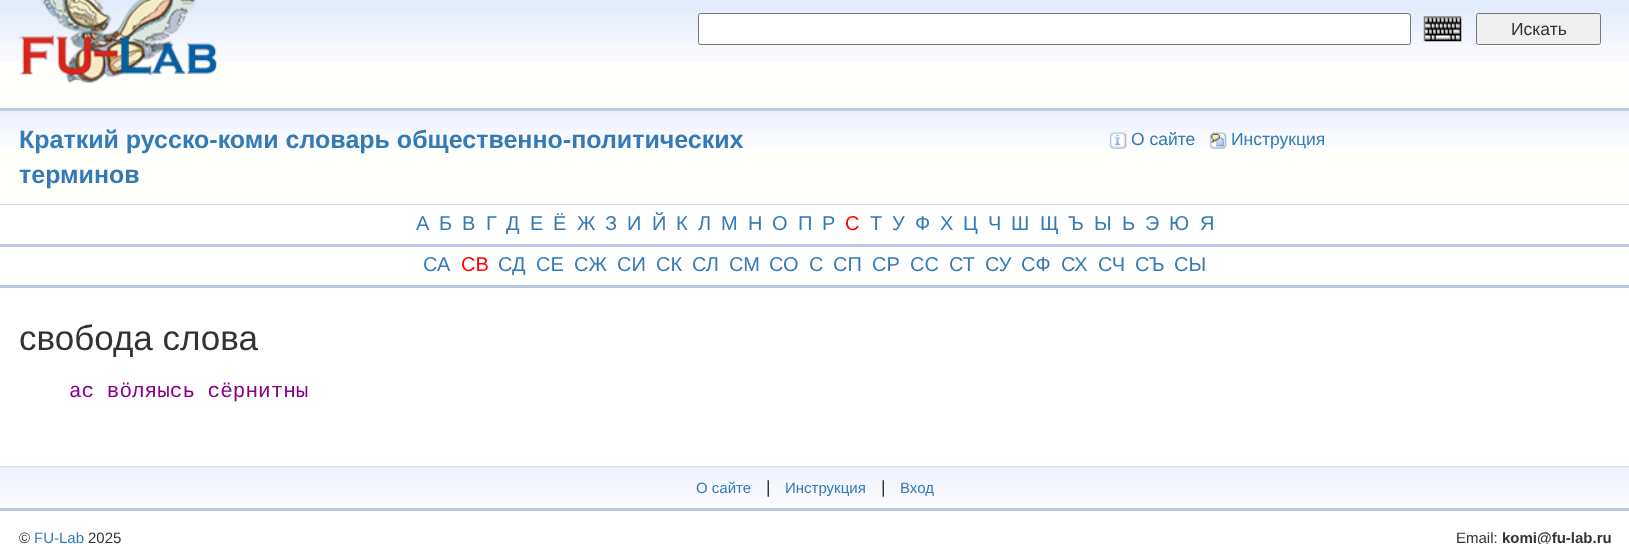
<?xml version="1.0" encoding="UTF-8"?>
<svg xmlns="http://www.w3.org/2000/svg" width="1629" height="544">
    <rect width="100%" height="100%" fill="#FFFFFF"/>
    <rect x="0" y="63" width="1629" height="45" fill="#FFFFFC"/>
    <image x="0" y="0" width="1629" height="63" href="img_01.png"/>
    <image x="18" y="0" width="199" height="83" href="img_02.png"/>
    <rect x="698.5" y="13.5" width="712" height="31" rx="2" fill="#FFFFFF" stroke="#767676"/>
    <image x="1423" y="16" width="39" height="26" href="img_03.png"/>
    <rect x="1476.5" y="13.5" width="124" height="31" rx="2" fill="#EFEFEF" stroke="#767676"/>
    <text x="1511" y="35" font-family="Liberation Sans" font-size="17.5" fill="#333333">Искать</text>
    <rect x="0" y="148" width="1629" height="56" fill="#FFFFFC"/>
    <image x="0" y="111" width="1629" height="37" href="img_04.png"/>
    <rect x="0" y="108" width="1629" height="3" fill="#BCC8E2"/>
    <rect x="0" y="204" width="1629" height="1" fill="#CEDBF0"/>
    <text font-family="Liberation Sans" font-size="25" font-weight="700" fill="#337AB7">
        <tspan x="19" y="148">Краткий русско-коми словарь общественно-политических</tspan>
        <tspan x="19" y="183">терминов</tspan>
    </text>
    <image x="1110" y="132" width="17" height="17" href="img_05.png"/>
    <text x="1131" y="145" font-family="Liberation Sans" font-size="17.5" fill="#337AB7">О сайте</text>
    <image x="1210" y="132" width="17" height="17" href="img_06.png"/>
    <text x="1231" y="145" font-family="Liberation Sans" font-size="17.5" fill="#337AB7">Инструкция</text>
    <rect x="0" y="244" width="1629" height="3" fill="#BCC8E2"/>
    <text x="416" y="230" font-family="Liberation Sans" font-size="20" fill="#337AB7">А</text>
    <text x="439" y="230" font-family="Liberation Sans" font-size="20" fill="#337AB7">Б</text>
    <text x="462" y="230" font-family="Liberation Sans" font-size="20" fill="#337AB7">В</text>
    <text x="486" y="230" font-family="Liberation Sans" font-size="20" fill="#337AB7">Г</text>
    <text x="506" y="230" font-family="Liberation Sans" font-size="20" fill="#337AB7">Д</text>
    <text x="530" y="230" font-family="Liberation Sans" font-size="20" fill="#337AB7">Е</text>
    <text x="553" y="230" font-family="Liberation Sans" font-size="20" fill="#337AB7">Ё</text>
    <text x="577" y="230" font-family="Liberation Sans" font-size="20" fill="#337AB7">Ж</text>
    <text x="605" y="230" font-family="Liberation Sans" font-size="20" fill="#337AB7">З</text>
    <text x="627" y="230" font-family="Liberation Sans" font-size="20" fill="#337AB7">И</text>
    <text x="652" y="230" font-family="Liberation Sans" font-size="20" fill="#337AB7">Й</text>
    <text x="676" y="230" font-family="Liberation Sans" font-size="20" fill="#337AB7">К</text>
    <text x="698" y="230" font-family="Liberation Sans" font-size="20" fill="#337AB7">Л</text>
    <text x="721" y="230" font-family="Liberation Sans" font-size="20" fill="#337AB7">М</text>
    <text x="748" y="230" font-family="Liberation Sans" font-size="20" fill="#337AB7">Н</text>
    <text x="772" y="230" font-family="Liberation Sans" font-size="20" fill="#337AB7">О</text>
    <text x="798" y="230" font-family="Liberation Sans" font-size="20" fill="#337AB7">П</text>
    <text x="822" y="230" font-family="Liberation Sans" font-size="20" fill="#337AB7">Р</text>
    <text x="845" y="230" font-family="Liberation Sans" font-size="20" fill="#FF0000">С</text>
    <text x="870" y="230" font-family="Liberation Sans" font-size="20" fill="#337AB7">Т</text>
    <text x="892" y="230" font-family="Liberation Sans" font-size="20" fill="#337AB7">У</text>
    <text x="915" y="230" font-family="Liberation Sans" font-size="20" fill="#337AB7">Ф</text>
    <text x="940" y="230" font-family="Liberation Sans" font-size="20" fill="#337AB7">Х</text>
    <text x="963" y="230" font-family="Liberation Sans" font-size="20" fill="#337AB7">Ц</text>
    <text x="988" y="230" font-family="Liberation Sans" font-size="20" fill="#337AB7">Ч</text>
    <text x="1011" y="230" font-family="Liberation Sans" font-size="20" fill="#337AB7">Ш</text>
    <text x="1040" y="230" font-family="Liberation Sans" font-size="20" fill="#337AB7">Щ</text>
    <text x="1068" y="230" font-family="Liberation Sans" font-size="20" fill="#337AB7">Ъ</text>
    <text x="1094" y="230" font-family="Liberation Sans" font-size="20" fill="#337AB7">Ы</text>
    <text x="1122" y="230" font-family="Liberation Sans" font-size="20" fill="#337AB7">Ь</text>
    <text x="1145" y="230" font-family="Liberation Sans" font-size="20" fill="#337AB7">Э</text>
    <text x="1169" y="230" font-family="Liberation Sans" font-size="20" fill="#337AB7">Ю</text>
    <text x="1200" y="230" font-family="Liberation Sans" font-size="20" fill="#337AB7">Я</text>
    <rect x="0" y="285" width="1629" height="3" fill="#BCC8E2"/>
    <text x="423" y="271" font-family="Liberation Sans" font-size="20" fill="#337AB7">СА</text>
    <text x="461" y="271" font-family="Liberation Sans" font-size="20" fill="#FF0000">СВ</text>
    <text x="498" y="271" font-family="Liberation Sans" font-size="20" fill="#337AB7">СД</text>
    <text x="536" y="271" font-family="Liberation Sans" font-size="20" fill="#337AB7">СЕ</text>
    <text x="574" y="271" font-family="Liberation Sans" font-size="20" fill="#337AB7">СЖ</text>
    <text x="617" y="271" font-family="Liberation Sans" font-size="20" fill="#337AB7">СИ</text>
    <text x="656" y="271" font-family="Liberation Sans" font-size="20" fill="#337AB7">СК</text>
    <text x="692" y="271" font-family="Liberation Sans" font-size="20" fill="#337AB7">СЛ</text>
    <text x="729" y="271" font-family="Liberation Sans" font-size="20" fill="#337AB7">СМ</text>
    <text x="769" y="271" font-family="Liberation Sans" font-size="20" fill="#337AB7">СО</text>
    <text x="809" y="271" font-family="Liberation Sans" font-size="20" fill="#337AB7">С</text>
    <text x="833" y="271" font-family="Liberation Sans" font-size="20" fill="#337AB7">СП</text>
    <text x="872" y="271" font-family="Liberation Sans" font-size="20" fill="#337AB7">СР</text>
    <text x="910" y="271" font-family="Liberation Sans" font-size="20" fill="#337AB7">СС</text>
    <text x="949" y="271" font-family="Liberation Sans" font-size="20" fill="#337AB7">СТ</text>
    <text x="985" y="271" font-family="Liberation Sans" font-size="20" fill="#337AB7">СУ</text>
    <text x="1021" y="271" font-family="Liberation Sans" font-size="20" fill="#337AB7">СФ</text>
    <text x="1061" y="271" font-family="Liberation Sans" font-size="20" fill="#337AB7">СХ</text>
    <text x="1098" y="271" font-family="Liberation Sans" font-size="20" fill="#337AB7">СЧ</text>
    <text x="1135" y="271" font-family="Liberation Sans" font-size="20" fill="#337AB7">СЪ</text>
    <text x="1174" y="271" font-family="Liberation Sans" font-size="20" fill="#337AB7">СЫ</text>
    <text x="19" y="350" font-family="Liberation Sans" font-size="35" fill="#333333">свобода слова</text>
    <text x="69" y="397" font-family="Liberation Mono" font-size="21" fill="#880088">ас вӧляысь сёрнитны</text>
    <image x="0" y="467" width="1629" height="41" href="img_07.png"/>
    <rect x="0" y="466" width="1629" height="1" fill="#CEDBF0"/>
    <rect x="0" y="508" width="1629" height="3" fill="#BCC8E2"/>
    <text x="696" y="493" font-family="Liberation Sans" font-size="15" fill="#337AB7">О сайте</text>
    <text x="766" y="493" font-family="Liberation Sans" font-size="17.5" fill="#333333">|</text>
    <text x="785" y="493" font-family="Liberation Sans" font-size="15" fill="#337AB7">Инструкция</text>
    <text x="881" y="493" font-family="Liberation Sans" font-size="17.5" fill="#333333">|</text>
    <text x="900" y="493" font-family="Liberation Sans" font-size="15" fill="#337AB7">Вход</text>
    <text x="19" y="543" font-family="Liberation Sans" font-size="15" fill="#333333">©</text>
    <text x="34" y="543" font-family="Liberation Sans" font-size="15" fill="#337AB7">FU-Lab</text>
    <text x="88" y="543" font-family="Liberation Sans" font-size="15" fill="#333333">2025</text>
    <text x="1456" y="543" font-family="Liberation Sans" font-size="15" fill="#333333">Email:</text>
    <text x="1502" y="543" font-family="Liberation Sans" font-size="15" font-weight="700" fill="#333333">komi@fu-lab.ru</text>
</svg>
